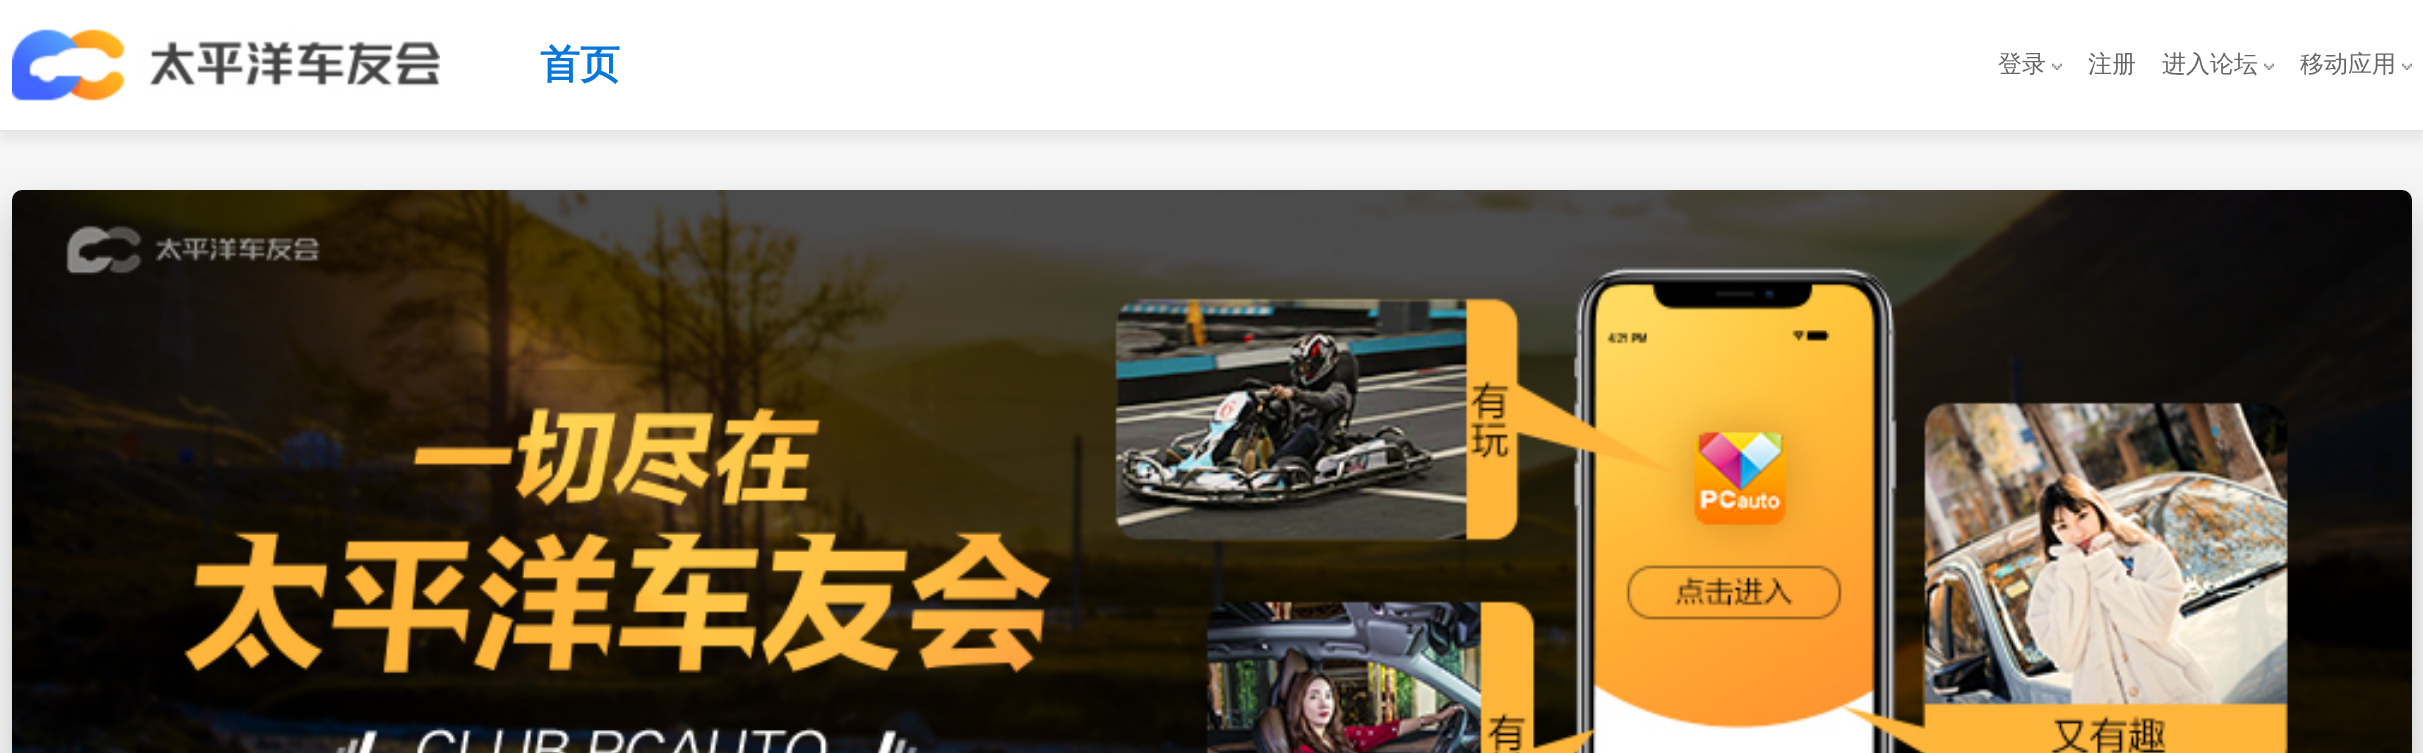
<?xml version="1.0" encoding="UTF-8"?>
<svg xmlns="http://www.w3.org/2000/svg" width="2423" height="753">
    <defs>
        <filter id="blur1" x="-50%" y="-200%" width="200%" height="500%"><feGaussianBlur stdDeviation="5"/></filter>
        <filter id="blur2" x="-50%" y="-200%" width="200%" height="500%"><feGaussianBlur stdDeviation="20"/></filter>
    </defs>
    <rect width="100%" height="100%" fill="#F6F6F6"/>
    <rect x="0" y="10" width="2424" height="132" fill="#000000" fill-opacity="0.05" filter="url(#blur1)"/>
    <rect x="0" y="0" width="2423" height="130" fill="#FFFFFF"/>
    <rect x="0" y="130" width="2423" height="2" fill="#E5E5E5"/>
    <image x="12" y="29" width="428" height="72" href="img_01.png"/>
    <text x="540" y="78" font-family="WenQuanYi Zen Hei" font-size="40" font-weight="700" fill="#0777DD">首页</text>
    <text x="1998" y="72" font-family="WenQuanYi Zen Hei" font-size="24" font-weight="500" fill="#666666">登录</text>
    <image x="2052" y="63" width="10" height="7" href="img_02.png"/>
    <text x="2088" y="72" font-family="WenQuanYi Zen Hei" font-size="24" font-weight="500" fill="#666666">注册</text>
    <text x="2162" y="72" font-family="WenQuanYi Zen Hei" font-size="24" font-weight="500" fill="#666666">进入论坛</text>
    <image x="2264" y="63" width="10" height="7" href="img_02.png"/>
    <text x="2300" y="72" font-family="WenQuanYi Zen Hei" font-size="24" font-weight="500" fill="#666666">移动应用</text>
    <image x="2402" y="63" width="10" height="7" href="img_02.png"/>
    <rect x="12" y="210" width="2400" height="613" rx="10" fill="#000000" fill-opacity="0.2" filter="url(#blur2)"/>
    <image x="12" y="190" width="2400" height="563" href="img_03.png"/>
</svg>
